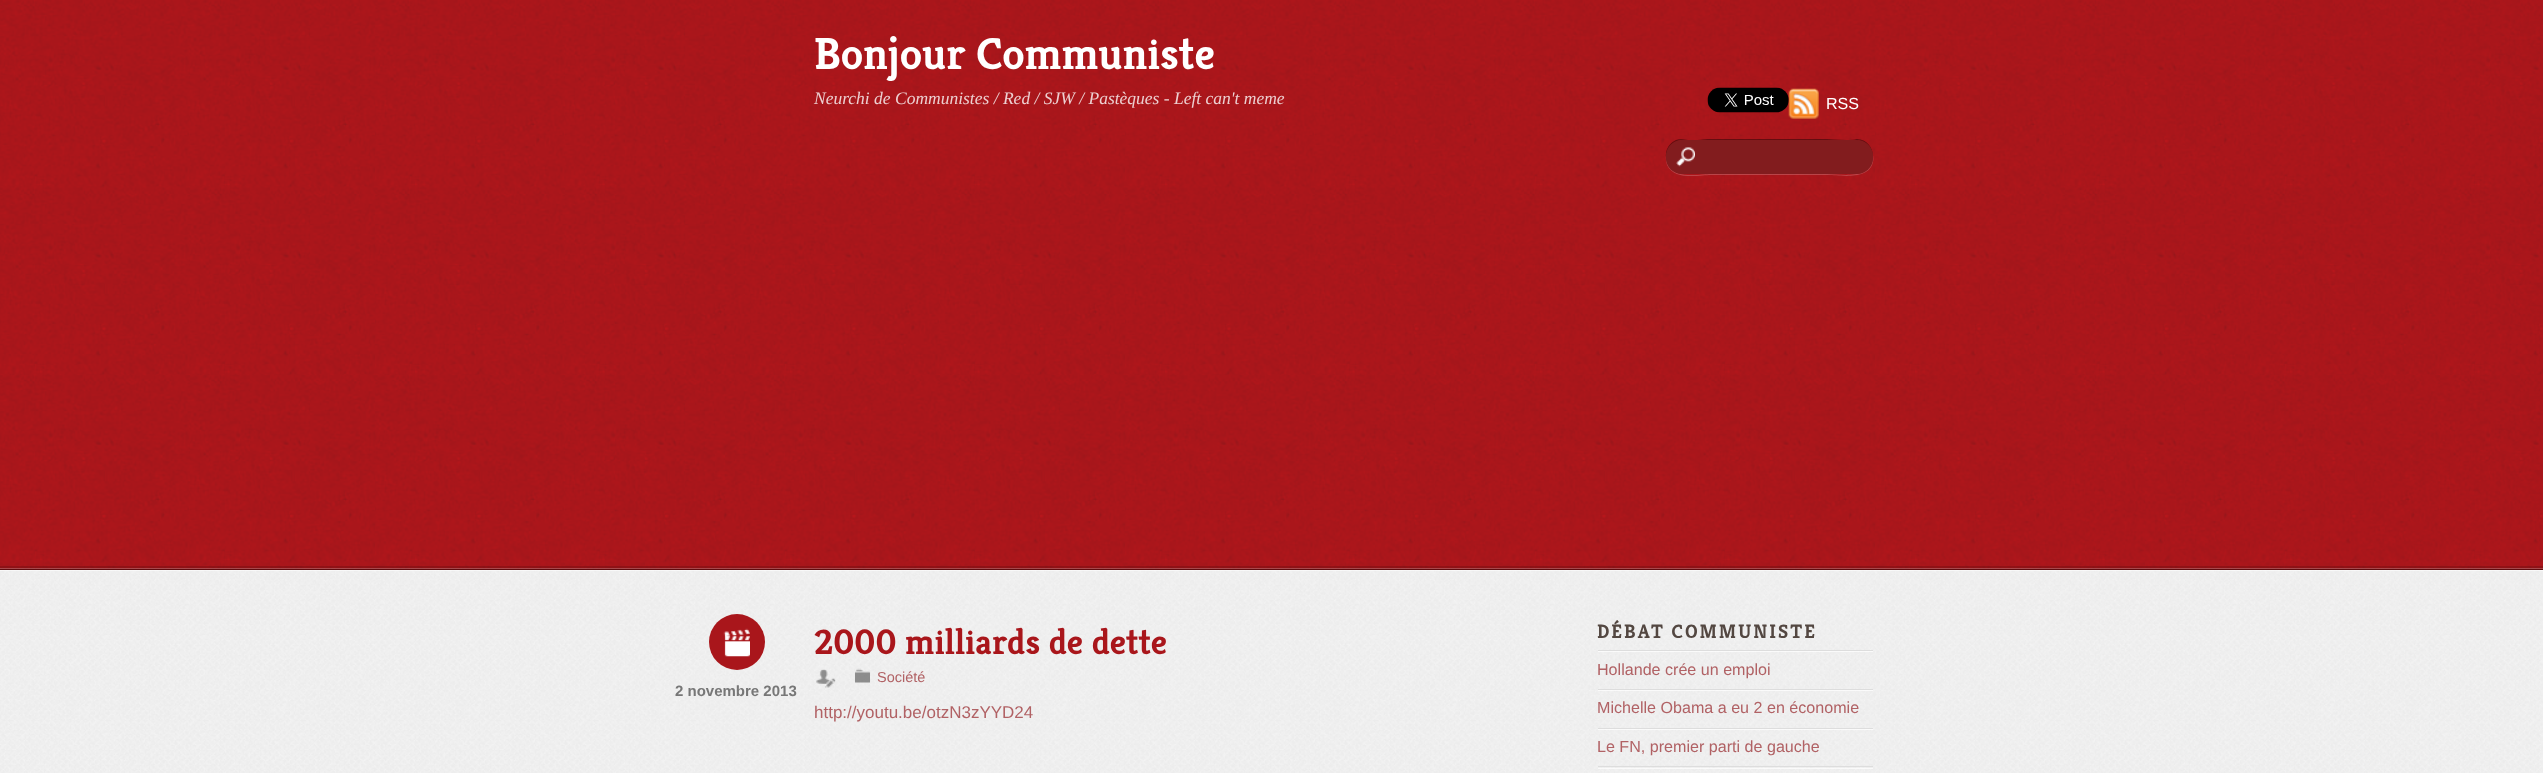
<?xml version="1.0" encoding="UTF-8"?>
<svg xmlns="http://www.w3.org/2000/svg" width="2543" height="773">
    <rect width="100%" height="100%" fill="#FFFFFF"/>
    <image x="0" y="0" width="2543" height="569" href="img_01.png"/>
    <text x="814" y="69" font-family="Kreon" font-size="45" font-weight="300" fill="#FFFFFF">Bonjour Communiste</text>
    <text x="814" y="104" font-family="Liberation Serif" font-size="17.5" font-style="italic" fill="#EDD0D1">Neurchi de Communistes / Red / SJW / Pastèques - Left can't meme</text>
    <image x="1788" y="88" width="31" height="31" href="img_03.png"/>
    <image x="1707" y="87" width="82" height="26" href="img_02.png"/>
    <text x="1826" y="109" font-family="Liberation Sans" font-size="16.1" fill="#FFFFFF">RSS</text>
    <path d="M 1667 152 C 1665 156 1666 161 1667 165 C 1674 181 1700 175 1711 175 H 1828 C 1839 175 1869 181 1873 162 C 1874 158 1873 152 1870 148 C 1873 152 1873 157 1872 161 C 1868 180 1839 174 1827 174 H 1711 C 1701 174 1674 180 1668 164 C 1666 160 1666 156 1667 152 Z" fill="#FFFFFF" fill-opacity="0.2"/>
    <path d="M 1682 139 C 1669 139 1662 153 1668 164 C 1666 160 1666 154 1668 150 C 1674 134 1701 140 1711 140 H 1827 C 1839 140 1868 134 1872 153 C 1873 158 1872 164 1869 168 C 1878 157 1871 139 1857 139 Z" fill="#000000" fill-opacity="0.4"/>
    <rect x="1666" y="140" width="207" height="34" rx="16" fill="#821C1E"/>
    <image x="1676" y="147" width="19" height="20" href="img_04.png"/>
    <path d="M 0 566 V 569 H 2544 V 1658 V 566 Z" fill="#000000" fill-opacity="0.15"/>
    <image x="0" y="568" width="2543" height="205" href="img_05.png"/>
    <rect x="0" y="570" width="2543" height="1" fill="#FFFFFF" fill-opacity="0.6"/>
    <rect x="0" y="569" width="2543" height="1" fill="#5F0C0F"/>
    <circle cx="737" cy="642" r="28" fill="#A9161B"/>
    <image x="723" y="628" width="27" height="29" href="img_06.png"/>
    <text x="814" y="654" font-family="Kreon" font-size="35.75" font-weight="300" fill="#A9161B">2000 milliards de dette</text>
    <image x="816" y="669" width="20" height="19" href="img_07.png"/>
    <image x="855" y="668" width="15" height="15" href="img_08.png"/>
    <text x="877" y="682" font-family="Liberation Sans" font-size="14.5" fill="#B16265">Société</text>
    <text x="675" y="696" font-family="Liberation Sans" font-size="15" font-weight="700" fill="#777777">2 novembre 2013</text>
    <text x="814" y="718" font-family="Liberation Sans" font-size="17" fill="#B16265">http://youtu.be/otzN3zYYD24</text>
    <text x="1597" y="638" font-family="Kreon" font-size="19.4" font-weight="300" letter-spacing="2" fill="#534741">DÉBAT COMMUNISTE</text>
    <rect x="1598" y="651" width="275" height="1" fill="#FFFFFF" fill-opacity="0.7"/>
    <rect x="1598" y="650" width="275" height="1" fill="#DDDDDD"/>
    <text x="1597" y="675" font-family="Liberation Sans" font-size="16.1" fill="#B16265">Hollande crée un emploi</text>
    <rect x="1598" y="690" width="275" height="1" fill="#FFFFFF" fill-opacity="0.7"/>
    <rect x="1598" y="689" width="275" height="1" fill="#DDDDDD"/>
    <text x="1597" y="713" font-family="Liberation Sans" font-size="16.1" fill="#B16265">Michelle Obama a eu 2 en économie</text>
    <rect x="1598" y="729" width="275" height="1" fill="#FFFFFF" fill-opacity="0.7"/>
    <rect x="1598" y="728" width="275" height="1" fill="#DDDDDD"/>
    <text x="1597" y="752" font-family="Liberation Sans" font-size="16.1" fill="#B16265">Le FN, premier parti de gauche</text>
    <rect x="1598" y="768" width="275" height="1" fill="#FFFFFF" fill-opacity="0.7"/>
    <rect x="1598" y="766" width="275" height="1" fill="#DDDDDD"/>
</svg>
